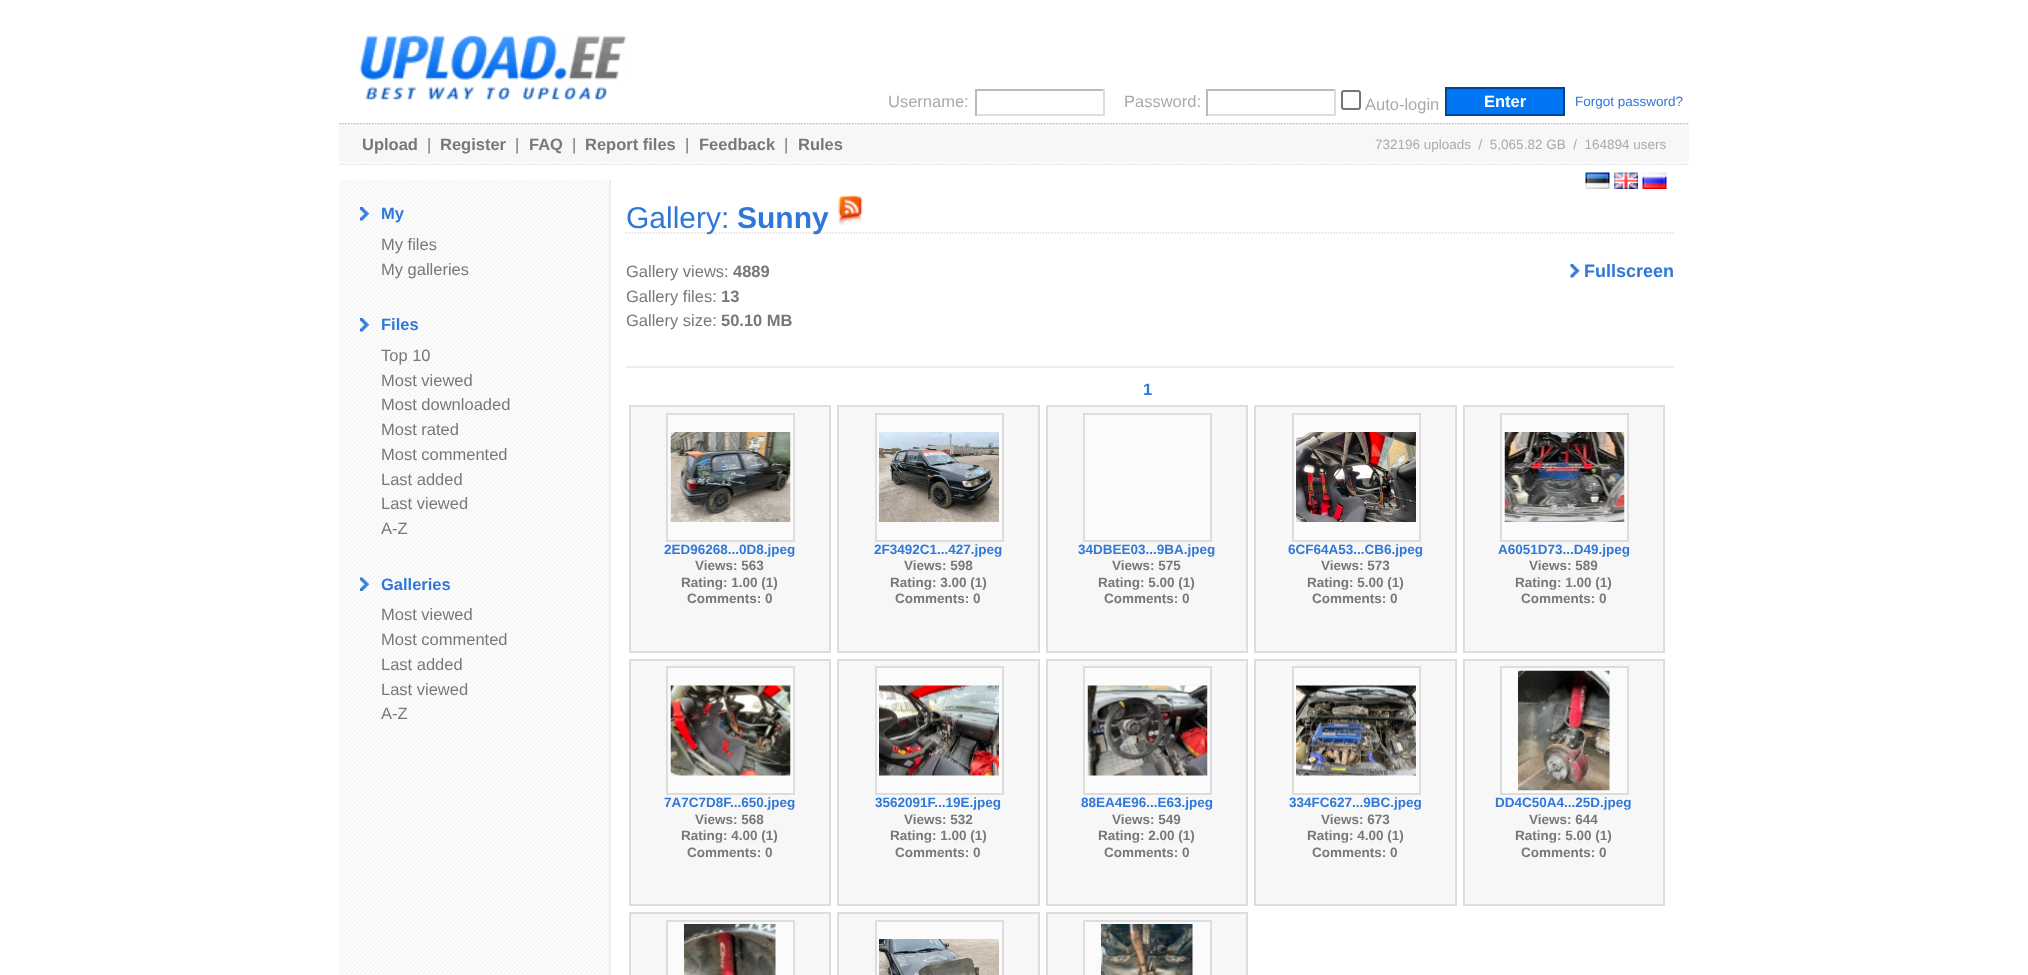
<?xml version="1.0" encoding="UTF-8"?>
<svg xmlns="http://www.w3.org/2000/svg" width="2028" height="975">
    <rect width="100%" height="100%" fill="#FFFFFF"/>
    <image x="359" y="35" width="267" height="65" href="img_01.png"/>
    <text x="888" y="107" font-family="Liberation Sans" font-size="16.5" fill="#AAAAAA">Username:</text>
    <rect x="975" y="89" width="129" height="2" fill="#BBBBBB"/>
    <rect x="1103" y="89" width="2" height="27" fill="#DDDDDD"/>
    <rect x="975" y="114" width="129" height="2" fill="#DDDDDD"/>
    <rect x="975" y="89" width="2" height="27" fill="#BBBBBB"/>
    <text x="1124" y="107" font-family="Liberation Sans" font-size="16.5" fill="#AAAAAA">Password:</text>
    <rect x="1206" y="89" width="129" height="2" fill="#BBBBBB"/>
    <rect x="1334" y="89" width="2" height="27" fill="#DDDDDD"/>
    <rect x="1206" y="114" width="129" height="2" fill="#DDDDDD"/>
    <rect x="1206" y="89" width="2" height="27" fill="#BBBBBB"/>
    <rect x="1342" y="91" width="18" height="18" rx="2" fill="none" stroke="#767676" stroke-width="2"/>
    <text x="1365" y="110" font-family="Liberation Sans" font-size="16.5" fill="#AAAAAA">Auto-login</text>
    <rect x="1446" y="88" width="118" height="27" fill="#0076F4" stroke="#004692" stroke-width="2"/>
    <text x="1484" y="107" font-family="Liberation Sans" font-size="16.5" font-weight="700" fill="#FFFFFF">Enter</text>
    <text x="1575" y="106" font-family="Liberation Sans" font-size="13.5" fill="#3078D8">Forgot password?</text>
    <image x="339" y="123" width="1350" height="2" href="img_02.png"/>
    <rect x="339" y="126" width="1350" height="36" fill="#F7F7F7"/>
    <text x="362" y="150" font-family="Liberation Sans" font-size="16.5" font-weight="700" fill="#787878">Upload</text>
    <text x="427" y="150" font-family="Liberation Sans" font-size="16.5" fill="#787878">|</text>
    <text x="440" y="150" font-family="Liberation Sans" font-size="16.5" font-weight="700" fill="#787878">Register</text>
    <text x="515" y="150" font-family="Liberation Sans" font-size="16.5" fill="#787878">|</text>
    <text x="529" y="150" font-family="Liberation Sans" font-size="16.5" font-weight="700" fill="#787878">FAQ</text>
    <text x="572" y="150" font-family="Liberation Sans" font-size="16.5" fill="#787878">|</text>
    <text x="585" y="150" font-family="Liberation Sans" font-size="16.5" font-weight="700" fill="#787878">Report files</text>
    <text x="685" y="150" font-family="Liberation Sans" font-size="16.5" fill="#787878">|</text>
    <text x="699" y="150" font-family="Liberation Sans" font-size="16.5" font-weight="700" fill="#787878">Feedback</text>
    <text x="784" y="150" font-family="Liberation Sans" font-size="16.5" fill="#787878">|</text>
    <text x="798" y="150" font-family="Liberation Sans" font-size="16.5" font-weight="700" fill="#787878">Rules</text>
    <text x="1375" y="149" font-family="Liberation Sans" font-size="13.5" fill="#AAAAAA" xml:space="preserve">732196 uploads  /  5,065.82 GB  /  164894 users</text>
    <image x="1585" y="172" width="25" height="17" href="img_03.png"/>
    <image x="1614" y="172" width="24" height="17" href="img_04.png"/>
    <image x="1642" y="172" width="25" height="17" href="img_05.png"/>
    <image x="339" y="163" width="1350" height="2" href="img_06.png"/>
    <image x="339" y="180" width="270" height="795" href="img_07.png"/>
    <rect x="609" y="180" width="2" height="795" fill="#EEEEEE"/>
    <image x="360" y="207" width="9" height="14" href="img_08.png"/>
    <text x="381" y="219" font-family="Liberation Sans" font-size="16.5" font-weight="700" fill="#3078D8">My</text>
    <text font-family="Liberation Sans" font-size="16.5" fill="#787878">
        <tspan x="381" y="250">My files</tspan>
        <tspan x="381" y="275">My galleries</tspan>
    </text>
    <image x="360" y="318" width="9" height="14" href="img_09.png"/>
    <text x="381" y="330" font-family="Liberation Sans" font-size="16.5" font-weight="700" fill="#3078D8">Files</text>
    <text font-family="Liberation Sans" font-size="16.5" fill="#787878">
        <tspan x="381" y="361">Top 10</tspan>
        <tspan x="381" y="386">Most viewed</tspan>
        <tspan x="381" y="410">Most downloaded</tspan>
        <tspan x="381" y="435">Most rated</tspan>
        <tspan x="381" y="460">Most commented</tspan>
        <tspan x="381" y="485">Last added</tspan>
        <tspan x="381" y="509">Last viewed</tspan>
        <tspan x="381" y="534">A-Z</tspan>
    </text>
    <image x="360" y="577" width="9" height="14" href="img_10.png"/>
    <text x="381" y="590" font-family="Liberation Sans" font-size="16.5" font-weight="700" fill="#3078D8">Galleries</text>
    <text font-family="Liberation Sans" font-size="16.5" fill="#787878">
        <tspan x="381" y="620">Most viewed</tspan>
        <tspan x="381" y="645">Most commented</tspan>
        <tspan x="381" y="670">Last added</tspan>
        <tspan x="381" y="695">Last viewed</tspan>
        <tspan x="381" y="719">A-Z</tspan>
    </text>
    <path d="M 625.5 233 H 1674" fill="none" stroke="#DDDDDD" stroke-width="1.5" stroke-dasharray="1.5 1.5"/>
    <text x="626" y="228" font-family="Liberation Sans" font-size="30" fill="#3078D8">Gallery:</text>
    <text x="737" y="228" font-family="Liberation Sans" font-size="30" font-weight="700" fill="#3078D8">Sunny</text>
    <image x="838" y="195" width="25" height="31" href="img_11.png"/>
    <text x="626" y="277" font-family="Liberation Sans" font-size="16.5" fill="#787878">Gallery views:</text>
    <text x="733" y="277" font-family="Liberation Sans" font-size="16.5" font-weight="700" fill="#787878">4889</text>
    <image x="1570" y="264" width="10" height="14" href="img_12.png"/>
    <text x="1584" y="277" font-family="Liberation Sans" font-size="18" font-weight="700" fill="#3078D8">Fullscreen</text>
    <text x="626" y="302" font-family="Liberation Sans" font-size="16.5" fill="#787878">Gallery files:</text>
    <text x="721" y="302" font-family="Liberation Sans" font-size="16.5" font-weight="700" fill="#787878">13</text>
    <text x="626" y="326" font-family="Liberation Sans" font-size="16.5" fill="#787878">Gallery size:</text>
    <text x="721" y="326" font-family="Liberation Sans" font-size="16.5" font-weight="700" fill="#787878">50.10 MB</text>
    <rect x="626" y="366" width="1048" height="2" fill="#EEEEEE"/>
    <text x="1143" y="395" font-family="Liberation Sans" font-size="16.5" font-weight="700" fill="#3078D8">1</text>
    <rect x="630" y="406" width="200" height="246" fill="#F7F7F7" stroke="#DDDDDD" stroke-width="2"/>
    <rect x="667" y="414" width="127" height="127" fill="#FBFBFB" stroke="#DDDDDD" stroke-width="2"/>
    <image x="670" y="432" width="121" height="90" href="img_13.png"/>
    <text x="664" y="554" font-family="Liberation Sans" font-size="13.5" font-weight="700" fill="#3078D8">2ED96268...0D8.jpeg</text>
    <text x="695" y="570" font-family="Liberation Sans" font-size="13.5" font-weight="700" fill="#787878">Views: 563</text>
    <text x="681" y="587" font-family="Liberation Sans" font-size="13.5" font-weight="700" fill="#787878">Rating: 1.00 (1)</text>
    <text x="687" y="603" font-family="Liberation Sans" font-size="13.5" font-weight="700" fill="#787878">Comments: 0</text>
    <rect x="838" y="406" width="201" height="246" fill="#F7F7F7" stroke="#DDDDDD" stroke-width="2"/>
    <rect x="876" y="414" width="127" height="127" fill="#FBFBFB" stroke="#DDDDDD" stroke-width="2"/>
    <image x="879" y="432" width="120" height="90" href="img_14.png"/>
    <text x="874" y="554" font-family="Liberation Sans" font-size="13.5" font-weight="700" fill="#3078D8">2F3492C1...427.jpeg</text>
    <text x="904" y="570" font-family="Liberation Sans" font-size="13.5" font-weight="700" fill="#787878">Views: 598</text>
    <text x="890" y="587" font-family="Liberation Sans" font-size="13.5" font-weight="700" fill="#787878">Rating: 3.00 (1)</text>
    <text x="895" y="603" font-family="Liberation Sans" font-size="13.5" font-weight="700" fill="#787878">Comments: 0</text>
    <rect x="1047" y="406" width="200" height="246" fill="#F7F7F7" stroke="#DDDDDD" stroke-width="2"/>
    <rect x="1084" y="414" width="127" height="127" fill="#FBFBFB" stroke="#DDDDDD" stroke-width="2"/>
    <text x="1078" y="554" font-family="Liberation Sans" font-size="13.5" font-weight="700" fill="#3078D8">34DBEE03...9BA.jpeg</text>
    <text x="1112" y="570" font-family="Liberation Sans" font-size="13.5" font-weight="700" fill="#787878">Views: 575</text>
    <text x="1098" y="587" font-family="Liberation Sans" font-size="13.5" font-weight="700" fill="#787878">Rating: 5.00 (1)</text>
    <text x="1104" y="603" font-family="Liberation Sans" font-size="13.5" font-weight="700" fill="#787878">Comments: 0</text>
    <rect x="1255" y="406" width="201" height="246" fill="#F7F7F7" stroke="#DDDDDD" stroke-width="2"/>
    <rect x="1293" y="414" width="127" height="127" fill="#FBFBFB" stroke="#DDDDDD" stroke-width="2"/>
    <image x="1296" y="432" width="120" height="90" href="img_15.png"/>
    <text x="1288" y="554" font-family="Liberation Sans" font-size="13.5" font-weight="700" fill="#3078D8">6CF64A53...CB6.jpeg</text>
    <text x="1321" y="570" font-family="Liberation Sans" font-size="13.5" font-weight="700" fill="#787878">Views: 573</text>
    <text x="1307" y="587" font-family="Liberation Sans" font-size="13.5" font-weight="700" fill="#787878">Rating: 5.00 (1)</text>
    <text x="1312" y="603" font-family="Liberation Sans" font-size="13.5" font-weight="700" fill="#787878">Comments: 0</text>
    <rect x="1464" y="406" width="200" height="246" fill="#F7F7F7" stroke="#DDDDDD" stroke-width="2"/>
    <rect x="1501" y="414" width="127" height="127" fill="#FBFBFB" stroke="#DDDDDD" stroke-width="2"/>
    <image x="1504" y="432" width="121" height="90" href="img_16.png"/>
    <text x="1498" y="554" font-family="Liberation Sans" font-size="13.5" font-weight="700" fill="#3078D8">A6051D73...D49.jpeg</text>
    <text x="1529" y="570" font-family="Liberation Sans" font-size="13.5" font-weight="700" fill="#787878">Views: 589</text>
    <text x="1515" y="587" font-family="Liberation Sans" font-size="13.5" font-weight="700" fill="#787878">Rating: 1.00 (1)</text>
    <text x="1521" y="603" font-family="Liberation Sans" font-size="13.5" font-weight="700" fill="#787878">Comments: 0</text>
    <rect x="630" y="660" width="200" height="245" fill="#F7F7F7" stroke="#DDDDDD" stroke-width="2"/>
    <rect x="667" y="667" width="127" height="127" fill="#FBFBFB" stroke="#DDDDDD" stroke-width="2"/>
    <image x="670" y="685" width="121" height="91" href="img_17.png"/>
    <text x="664" y="807" font-family="Liberation Sans" font-size="13.5" font-weight="700" fill="#3078D8">7A7C7D8F...650.jpeg</text>
    <text x="695" y="824" font-family="Liberation Sans" font-size="13.5" font-weight="700" fill="#787878">Views: 568</text>
    <text x="681" y="840" font-family="Liberation Sans" font-size="13.5" font-weight="700" fill="#787878">Rating: 4.00 (1)</text>
    <text x="687" y="857" font-family="Liberation Sans" font-size="13.5" font-weight="700" fill="#787878">Comments: 0</text>
    <rect x="838" y="660" width="201" height="245" fill="#F7F7F7" stroke="#DDDDDD" stroke-width="2"/>
    <rect x="876" y="667" width="127" height="127" fill="#FBFBFB" stroke="#DDDDDD" stroke-width="2"/>
    <image x="879" y="685" width="120" height="91" href="img_18.png"/>
    <text x="875" y="807" font-family="Liberation Sans" font-size="13.5" font-weight="700" fill="#3078D8">3562091F...19E.jpeg</text>
    <text x="904" y="824" font-family="Liberation Sans" font-size="13.5" font-weight="700" fill="#787878">Views: 532</text>
    <text x="890" y="840" font-family="Liberation Sans" font-size="13.5" font-weight="700" fill="#787878">Rating: 1.00 (1)</text>
    <text x="895" y="857" font-family="Liberation Sans" font-size="13.5" font-weight="700" fill="#787878">Comments: 0</text>
    <rect x="1047" y="660" width="200" height="245" fill="#F7F7F7" stroke="#DDDDDD" stroke-width="2"/>
    <rect x="1084" y="667" width="127" height="127" fill="#FBFBFB" stroke="#DDDDDD" stroke-width="2"/>
    <image x="1087" y="685" width="121" height="91" href="img_19.png"/>
    <text x="1081" y="807" font-family="Liberation Sans" font-size="13.5" font-weight="700" fill="#3078D8">88EA4E96...E63.jpeg</text>
    <text x="1112" y="824" font-family="Liberation Sans" font-size="13.5" font-weight="700" fill="#787878">Views: 549</text>
    <text x="1098" y="840" font-family="Liberation Sans" font-size="13.5" font-weight="700" fill="#787878">Rating: 2.00 (1)</text>
    <text x="1104" y="857" font-family="Liberation Sans" font-size="13.5" font-weight="700" fill="#787878">Comments: 0</text>
    <rect x="1255" y="660" width="201" height="245" fill="#F7F7F7" stroke="#DDDDDD" stroke-width="2"/>
    <rect x="1293" y="667" width="127" height="127" fill="#FBFBFB" stroke="#DDDDDD" stroke-width="2"/>
    <image x="1296" y="685" width="120" height="91" href="img_20.png"/>
    <text x="1289" y="807" font-family="Liberation Sans" font-size="13.5" font-weight="700" fill="#3078D8">334FC627...9BC.jpeg</text>
    <text x="1321" y="824" font-family="Liberation Sans" font-size="13.5" font-weight="700" fill="#787878">Views: 673</text>
    <text x="1307" y="840" font-family="Liberation Sans" font-size="13.5" font-weight="700" fill="#787878">Rating: 4.00 (1)</text>
    <text x="1312" y="857" font-family="Liberation Sans" font-size="13.5" font-weight="700" fill="#787878">Comments: 0</text>
    <rect x="1464" y="660" width="200" height="245" fill="#F7F7F7" stroke="#DDDDDD" stroke-width="2"/>
    <rect x="1501" y="667" width="127" height="127" fill="#FBFBFB" stroke="#DDDDDD" stroke-width="2"/>
    <image x="1518" y="670" width="92" height="121" href="img_21.png"/>
    <text x="1495" y="807" font-family="Liberation Sans" font-size="13.5" font-weight="700" fill="#3078D8">DD4C50A4...25D.jpeg</text>
    <text x="1529" y="824" font-family="Liberation Sans" font-size="13.5" font-weight="700" fill="#787878">Views: 644</text>
    <text x="1515" y="840" font-family="Liberation Sans" font-size="13.5" font-weight="700" fill="#787878">Rating: 5.00 (1)</text>
    <text x="1521" y="857" font-family="Liberation Sans" font-size="13.5" font-weight="700" fill="#787878">Comments: 0</text>
    <rect x="630" y="913" width="200" height="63" fill="#F7F7F7" stroke="#DDDDDD" stroke-width="2"/>
    <rect x="667" y="921" width="127" height="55" fill="#FBFBFB" stroke="#DDDDDD" stroke-width="2"/>
    <image x="684" y="924" width="92" height="51" href="img_22.png"/>
    <rect x="838" y="913" width="201" height="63" fill="#F7F7F7" stroke="#DDDDDD" stroke-width="2"/>
    <rect x="876" y="921" width="127" height="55" fill="#FBFBFB" stroke="#DDDDDD" stroke-width="2"/>
    <image x="879" y="939" width="120" height="36" href="img_23.png"/>
    <rect x="1047" y="913" width="200" height="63" fill="#F7F7F7" stroke="#DDDDDD" stroke-width="2"/>
    <rect x="1084" y="921" width="127" height="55" fill="#FBFBFB" stroke="#DDDDDD" stroke-width="2"/>
    <image x="1101" y="924" width="92" height="51" href="img_24.png"/>
</svg>
